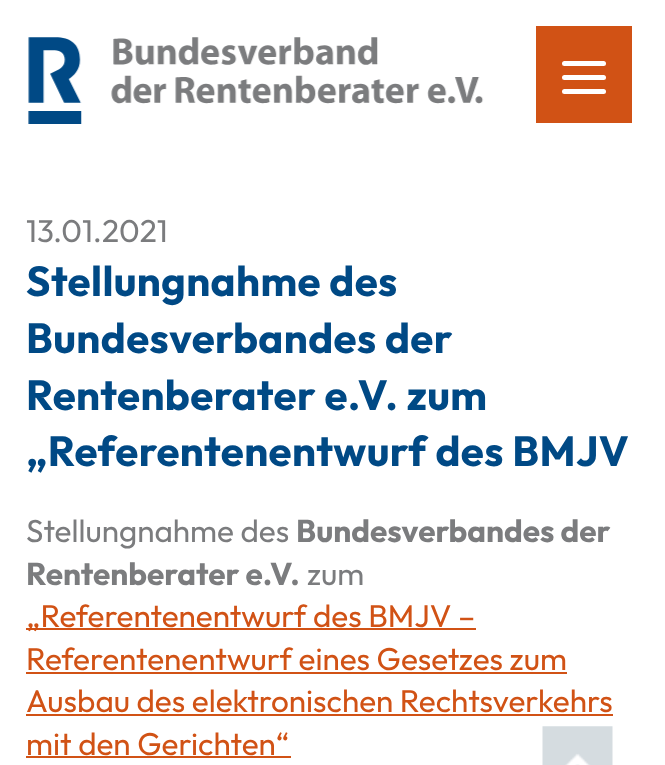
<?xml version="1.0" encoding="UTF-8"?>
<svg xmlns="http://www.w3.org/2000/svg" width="665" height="765">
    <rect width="100%" height="100%" fill="#FFFFFF"/>
    <rect x="536" y="26" width="96" height="97" fill="#D15215"/>
    <rect x="562" y="89" width="44" height="5" rx="2.5" fill="#FFFFFF"/>
    <rect x="562" y="61" width="44" height="5" rx="2.5" fill="#FFFFFF"/>
    <rect x="562" y="75" width="44" height="5" rx="2.5" fill="#FFFFFF"/>
    <image x="28" y="37" width="456" height="87" href="img_01.png"/>
    <text x="26" y="242" font-family="Outfit" font-size="31.5" font-weight="100" fill="#7B7C7E">13.01.2021</text>
    <text font-family="'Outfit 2'" font-size="42" font-weight="100" letter-spacing="0.4" fill="#004985">
        <tspan x="26" y="296">Stellungnahme des</tspan>
        <tspan x="26" y="353">Bundesverbandes der</tspan>
        <tspan x="26" y="410">Rentenberater e.V. zum</tspan>
        <tspan x="26" y="466">„Referentenentwurf des BMJV</tspan>
    </text>
    <text x="26" y="542" font-family="Outfit" font-size="31.5" font-weight="100" fill="#7B7C7E">Stellungnahme des</text>
    <text x="296" y="542" font-family="'Outfit 2'" font-size="31.5" font-weight="100" fill="#7B7C7E">Bundesverbandes der</text>
    <text x="26" y="585" font-family="'Outfit 2'" font-size="31.5" font-weight="100" fill="#7B7C7E">Rentenberater e.V.</text>
    <text x="307" y="585" font-family="Outfit" font-size="31.5" font-weight="100" fill="#7B7C7E">zum</text>
    <rect x="26" y="628" width="450" height="2" fill="#D15215"/>
    <text font-family="Outfit" font-size="31.5" font-weight="100" fill="#D15215">
        <tspan x="26" y="627">„Referentenentwurf des BMJV –</tspan>
        <tspan x="26" y="670">Referentenentwurf eines Gesetzes zum</tspan>
    </text>
    <rect x="26" y="672" width="541" height="2" fill="#D15215"/>
    <text x="26" y="712" font-family="Outfit" font-size="31.5" font-weight="100" fill="#D15215">Ausbau des elektronischen Rechtsverkehrs</text>
    <rect x="26" y="714" width="587" height="2" fill="#D15215"/>
    <text x="26" y="755" font-family="Outfit" font-size="31.5" font-weight="100" fill="#D15215">mit den Gerichten“</text>
    <rect x="26" y="756" width="265" height="2" fill="#D15215"/>
    <image x="542" y="726" width="71" height="39" href="img_02.png"/>
</svg>
